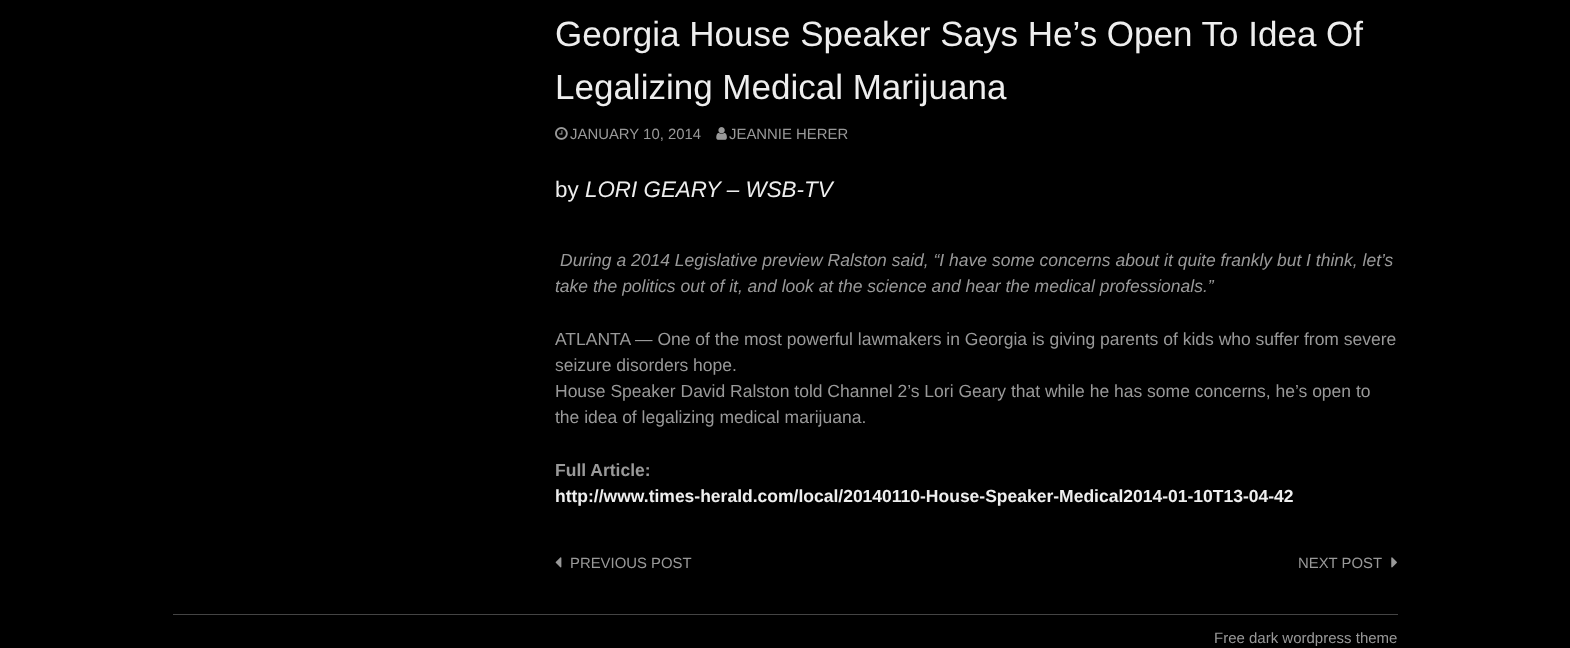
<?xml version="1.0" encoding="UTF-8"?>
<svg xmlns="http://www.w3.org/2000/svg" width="1570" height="648">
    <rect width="100%" height="100%" fill="#000000"/>
    <text font-family="Liberation Sans" font-size="35" fill="#EEEEEE">
        <tspan x="555" y="46">Georgia House Speaker Says He’s Open To Idea Of</tspan>
        <tspan x="555" y="99">Legalizing Medical Marijuana</tspan>
    </text>
    <image x="555" y="127" width="13" height="13" href="img_01.png"/>
    <text x="570" y="139" font-family="Liberation Sans" font-size="14.9" fill="#999999">JANUARY 10, 2014</text>
    <image x="716" y="127" width="11" height="13" href="img_02.png"/>
    <text x="729" y="139" font-family="Liberation Sans" font-size="14.9" fill="#999999">JEANNIE HERER</text>
    <text x="555" y="197" font-family="Liberation Sans" font-size="22.4" fill="#EEEEEE">by</text>
    <text x="585" y="197" font-family="Liberation Sans" font-size="22.4" font-style="italic" fill="#EEEEEE">LORI GEARY – WSB-TV</text>
    <text x="560" y="266" font-family="Liberation Sans" font-size="17.5" font-style="italic" fill="#999999">During a 2014 Legislative preview Ralston said, “I have some concerns about it quite frankly but I think, let’s</text>
    <text x="555" y="292" font-family="Liberation Sans" font-size="17.5" font-style="italic" fill="#999999">take the politics out of it, and look at the science and hear the medical professionals.”</text>
    <text font-family="Liberation Sans" font-size="17.5" fill="#999999">
        <tspan x="555" y="345">ATLANTA — One of the most powerful lawmakers in Georgia is giving parents of kids who suffer from severe</tspan>
        <tspan x="555" y="371">seizure disorders hope.</tspan>
        <tspan x="555" y="397">House Speaker David Ralston told Channel 2’s Lori Geary that while he has some concerns, he’s open to</tspan>
        <tspan x="555" y="423">the idea of legalizing medical marijuana.</tspan>
    </text>
    <text x="555" y="476" font-family="Liberation Sans" font-size="17.5" font-weight="700" fill="#999999">Full Article:</text>
    <text x="555" y="502" font-family="Liberation Sans" font-size="17.5" font-weight="700" fill="#EEEEEE">http://www.times-herald.com/local/20140110-House-Speaker-Medical2014-01-10T13-04-42</text>
    <image x="555" y="557" width="7" height="11" href="img_03.png"/>
    <text x="570" y="568" font-family="Liberation Sans" font-size="14.9" fill="#999999">PREVIOUS POST</text>
    <text x="1298" y="568" font-family="Liberation Sans" font-size="14.9" fill="#999999">NEXT POST</text>
    <image x="1391" y="557" width="6" height="11" href="img_04.png"/>
    <rect x="173" y="614" width="1225" height="1" fill="#444444"/>
    <text x="1214" y="643" font-family="Liberation Sans" font-size="15" fill="#999999">Free dark wordpress theme</text>
</svg>
